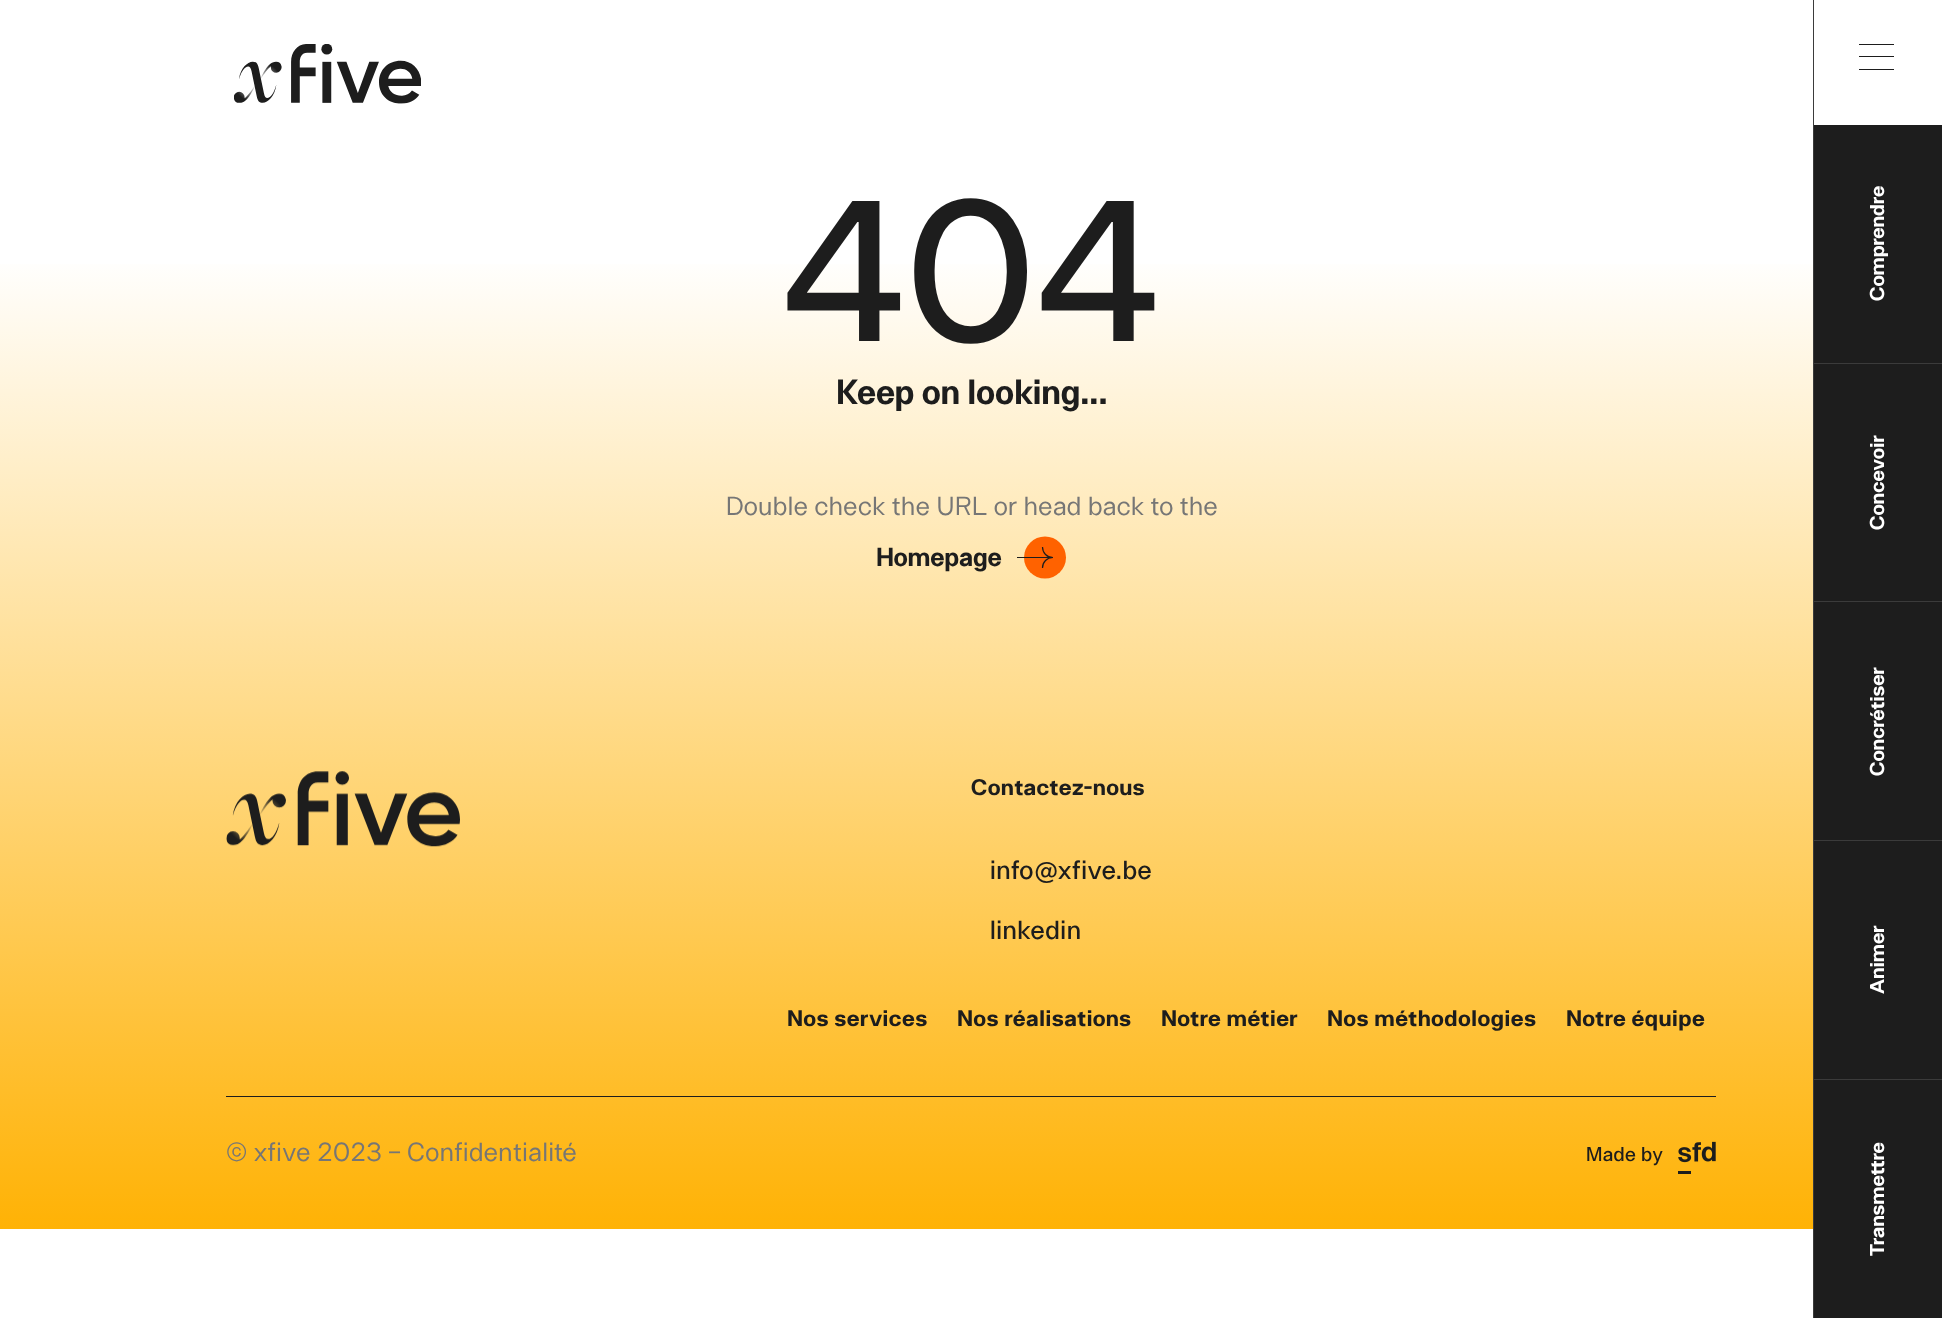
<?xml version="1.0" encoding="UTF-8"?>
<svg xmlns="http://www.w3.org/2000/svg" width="1942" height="1318">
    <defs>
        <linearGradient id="g1" gradientUnits="userSpaceOnUse" x1="971" y1="1229" x2="971" y2="254"><stop offset="0" stop-color="#FFB205"/><stop offset="1" stop-color="#FFFFFF"/></linearGradient>
    </defs>
    <rect width="100%" height="100%" fill="#FFFFFF"/>
    <image x="234" y="44" width="187" height="60" href="img_01.png"/>
    <rect x="0" y="264" width="1813" height="965" fill="url(#g1)"/>
    <text x="781" y="341" font-family="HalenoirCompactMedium" font-size="200" font-weight="500" fill="#1D1D1D">404</text>
    <text x="836" y="404" font-family="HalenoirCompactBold" font-size="35" font-weight="700" fill="#1D1D1D">Keep on looking...</text>
    <text x="726" y="515" font-family="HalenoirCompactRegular" font-size="26.25" letter-spacing="0.55" fill="#767676">Double check the URL or head back to the</text>
    <text x="876" y="566" font-family="HalenoirCompactBold" font-size="26.25" font-weight="700" fill="#1D1D1D">Homepage</text>
    <circle cx="1045" cy="557.5" r="21" fill="#FF6200"/>
    <rect x="1017" y="557" width="36" height="1" fill="#1D1D1D"/>
    <path d="M 1053 557.5 C 1047 557.5 1042.5 553 1042.5 547 M 1053 557.5 C 1047 557.5 1042.5 562 1042.5 568" fill="none" stroke="#1D1D1D" stroke-width="1.2"/>
    <rect x="1814" y="125" width="128" height="1193" fill="#1D1D1D"/>
    <rect x="1813" y="0" width="1" height="1318" fill="#3B3B3B"/>
    <rect x="1859" y="44" width="35" height="1" fill="#1D1D1D"/>
    <rect x="1859" y="56" width="35" height="1" fill="#1D1D1D"/>
    <rect x="1859" y="69" width="35" height="1" fill="#1D1D1D"/>
    <rect x="1814" y="363" width="128" height="1" fill="#3B3B3B"/>
    <text x="1884" y="301" transform="rotate(-90 1884 301)" font-family="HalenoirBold" font-size="20" font-weight="700" fill="#FFFFFF">Comprendre</text>
    <rect x="1814" y="601" width="128" height="1" fill="#3B3B3B"/>
    <text x="1884" y="530" transform="rotate(-90 1884 530)" font-family="HalenoirBold" font-size="20" font-weight="700" fill="#FFFFFF">Concevoir</text>
    <rect x="1814" y="840" width="128" height="1" fill="#3B3B3B"/>
    <text x="1884" y="776" transform="rotate(-90 1884 776)" font-family="HalenoirBold" font-size="20" font-weight="700" fill="#FFFFFF">Concrétiser</text>
    <rect x="1814" y="1079" width="128" height="1" fill="#3B3B3B"/>
    <text x="1884" y="994" transform="rotate(-90 1884 994)" font-family="HalenoirBold" font-size="20" font-weight="700" fill="#FFFFFF">Animer</text>
    <text x="1884" y="1256" transform="rotate(-90 1884 1256)" font-family="HalenoirBold" font-size="20" font-weight="700" fill="#FFFFFF">Transmettre</text>
    <image x="226" y="771" width="234" height="76" href="img_02.png"/>
    <text x="971" y="795" font-family="HalenoirBold" font-size="22.5" font-weight="700" letter-spacing="0.5" fill="#1D1D1D">Contactez-nous</text>
    <text x="990" y="879" font-family="HalenoirCompactMedium" font-size="26.25" font-weight="500" letter-spacing="0.55" fill="#1D1D1D">info@xfive.be</text>
    <text x="990" y="939" font-family="HalenoirCompactMedium" font-size="26.25" font-weight="500" letter-spacing="0.55" fill="#1D1D1D">linkedin</text>
    <text x="787" y="1026" font-family="HalenoirBold" font-size="22.5" font-weight="700" letter-spacing="0.5" fill="#1D1D1D">Nos services</text>
    <text x="957" y="1026" font-family="HalenoirBold" font-size="22.5" font-weight="700" letter-spacing="0.5" fill="#1D1D1D">Nos réalisations</text>
    <text x="1161" y="1026" font-family="HalenoirBold" font-size="22.5" font-weight="700" letter-spacing="0.5" fill="#1D1D1D">Notre métier</text>
    <text x="1327" y="1026" font-family="HalenoirBold" font-size="22.5" font-weight="700" letter-spacing="0.5" fill="#1D1D1D">Nos méthodologies</text>
    <text x="1566" y="1026" font-family="HalenoirBold" font-size="22.5" font-weight="700" letter-spacing="0.5" fill="#1D1D1D">Notre équipe</text>
    <rect x="226" y="1096" width="1490" height="1" fill="#1D1D1D"/>
    <text x="226" y="1161" font-family="HalenoirCompactRegular" font-size="26.25" letter-spacing="0.55" fill="#767676">© xfive 2023 – Confidentialité</text>
    <text x="1586" y="1161" font-family="HalenoirCompactMedium" font-size="20" font-weight="500" letter-spacing="0.5" fill="#1D1D1D">Made by</text>
    <image x="1678" y="1141" width="38" height="33" href="img_03.png"/>
</svg>
